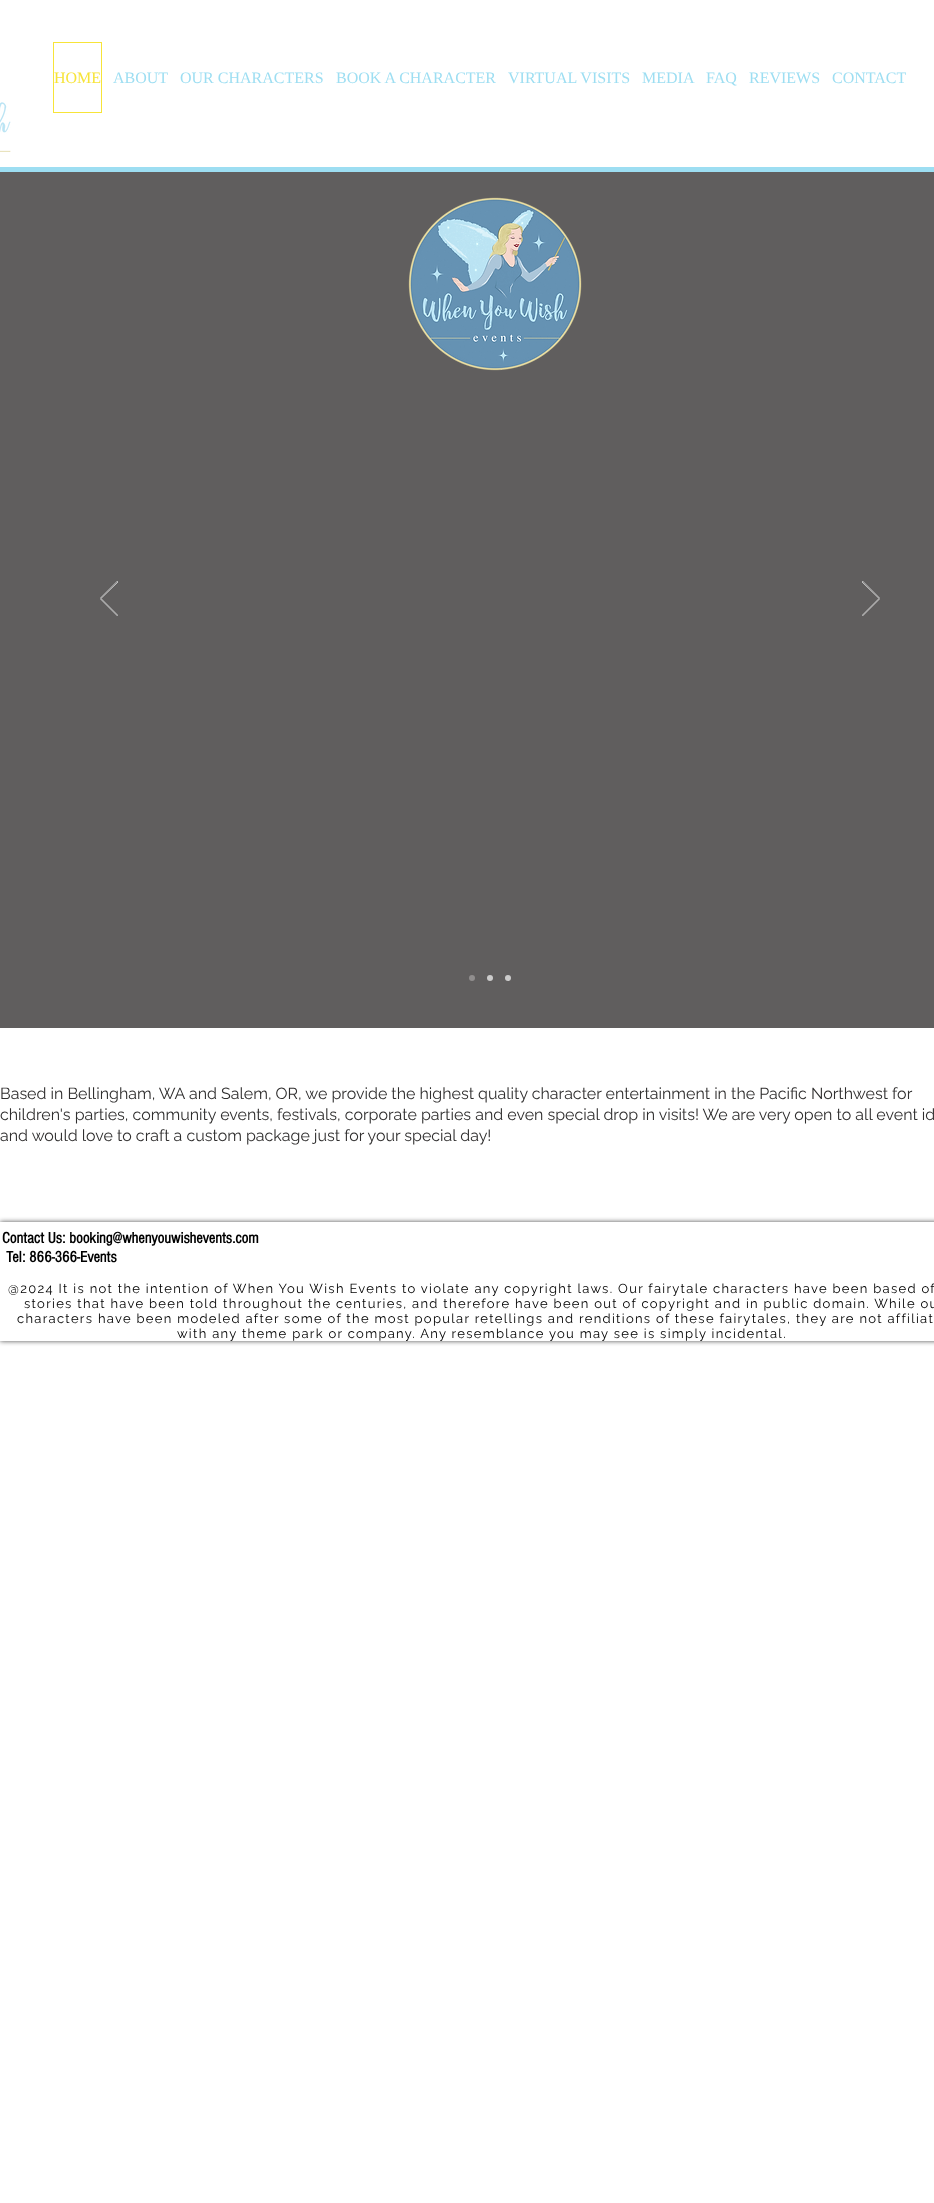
<?xml version="1.0" encoding="UTF-8"?>
<svg xmlns="http://www.w3.org/2000/svg" width="934" height="2203">
    <defs>
        <clipPath id="clip1"><rect x="100" y="581" width="18" height="35"/></clipPath>
        <clipPath id="clip2"><rect x="862" y="581" width="18" height="35"/></clipPath>
        <clipPath id="clip3"><path d="M 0 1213 H 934 V 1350 H 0 Z M 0 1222 H 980 V 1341 H 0 Z" clip-rule="evenodd"/></clipPath>
        <filter id="blur1" x="-50%" y="-200%" width="200%" height="500%"><feGaussianBlur stdDeviation="2.5"/></filter>
    </defs>
    <rect width="100%" height="100%" fill="#FFFFFF"/>
    <rect x="53.5" y="42.5" width="48" height="70" fill="none" stroke="#F7E439"/>
    <text x="54" y="83" font-family="Liberation Serif" font-size="16" fill="#F7E439">HOME</text>
    <text x="113" y="83" font-family="Liberation Serif" font-size="16" fill="#9DDEF2">ABOUT</text>
    <text x="180" y="83" font-family="Liberation Serif" font-size="16" fill="#9DDEF2">OUR CHARACTERS</text>
    <text x="336" y="83" font-family="Liberation Serif" font-size="16" fill="#9DDEF2">BOOK A CHARACTER</text>
    <text x="508" y="83" font-family="Liberation Serif" font-size="16" fill="#9DDEF2">VIRTUAL VISITS</text>
    <text x="642" y="83" font-family="Liberation Serif" font-size="16" fill="#9DDEF2">MEDIA</text>
    <text x="706" y="83" font-family="Liberation Serif" font-size="16" fill="#9DDEF2">FAQ</text>
    <text x="749" y="83" font-family="Liberation Serif" font-size="16" fill="#9DDEF2">REVIEWS</text>
    <text x="832" y="83" font-family="Liberation Serif" font-size="16" fill="#9DDEF2">CONTACT</text>
    <image x="0" y="102" width="11" height="50" href="img_01.png"/>
    <rect x="0" y="167" width="934" height="5" fill="#9DDEF2"/>
    <rect x="0" y="172" width="934" height="856" fill="#605E5E"/>
    <image x="408" y="197" width="174" height="174" href="img_02.png"/>
    <g clip-path="url(#clip1)">
        <path d="M 117.5 616 L 100 598.5 L 117.5 581 L 118 582 L 101 598.5 L 118 615.5 Z" fill="none" stroke="#CCCCCC" stroke-width="0.9"/>
    </g>
    <g clip-path="url(#clip2)">
        <path d="M 862.5 616 L 880 598.5 L 862.5 581 L 862 582 L 879 598.5 L 862 615.5 Z" fill="none" stroke="#CCCCCC" stroke-width="0.9"/>
    </g>
    <circle cx="472" cy="978" r="3" fill="#908E8E"/>
    <circle cx="490" cy="978" r="3" fill="#CCCCCC"/>
    <circle cx="508" cy="978" r="3" fill="#CCCCCC"/>
    <text font-family="Raleway" font-size="16" fill="#2F2E2E">
        <tspan x="0" y="1099">Based in Bellingham, WA and Salem, OR, we provide the highest quality character entertainment in the Pacific Northwest for</tspan>
        <tspan x="0" y="1120">children's parties, community events, festivals, corporate parties and even special drop in visits! We are very open to all event id</tspan>
        <tspan x="0" y="1141">and would love to craft a custom package just for your special day!</tspan>
    </text>
    <g clip-path="url(#clip3)">
        <rect x="0" y="1222" width="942" height="119" fill="#000000" fill-opacity="0.7" filter="url(#blur1)"/>
    </g>
    <text x="2" y="1243" font-family="'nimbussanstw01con'" font-size="16" font-weight="700" fill="#000000">Contact Us: booking@whenyouwishevents.com</text>
    <text x="6" y="1262" font-family="'nimbussanstw01con'" font-size="16" font-weight="700" fill="#000000">Tel: 866-366-Events</text>
    <text x="8" y="1293" font-family="Raleway" font-size="13" letter-spacing="1.3" fill="#000000">@2024 It is not the intention of When You Wish Events to violate any copyright laws. Our fairytale characters have been based of</text>
    <text x="24" y="1308" font-family="Raleway" font-size="13" letter-spacing="1.3" fill="#000000">stories that have been told throughout the centuries, and therefore have been out of copyright and in public domain. While ou</text>
    <text x="17" y="1323" font-family="Raleway" font-size="13" letter-spacing="1.3" fill="#000000">characters have been modeled after some of the most popular retellings and renditions of these fairytales, they are not affiliat</text>
    <text x="177" y="1338" font-family="Raleway" font-size="13" letter-spacing="1.3" fill="#000000">with any theme park or company. Any resemblance you may see is simply incidental.</text>
</svg>
